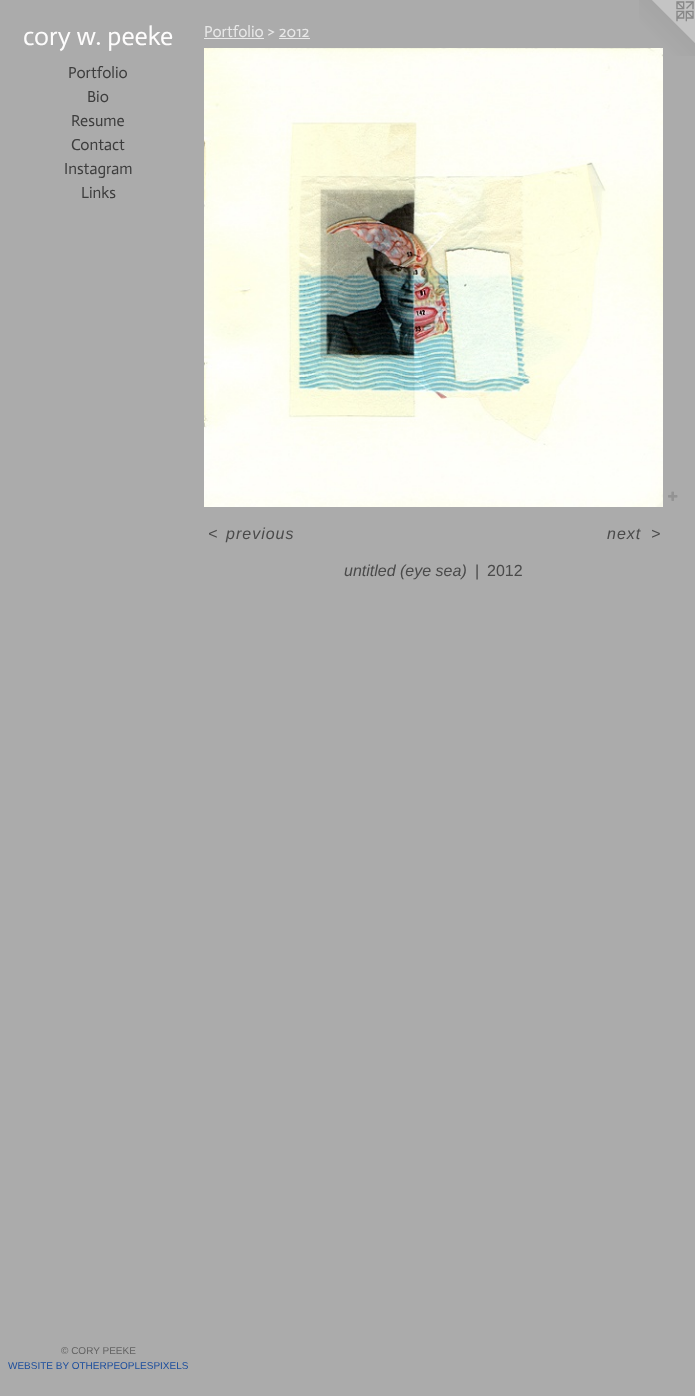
<?xml version="1.0" encoding="UTF-8"?>
<svg xmlns="http://www.w3.org/2000/svg" width="695" height="1396">
    <rect width="100%" height="100%" fill="#ABABAB"/>
    <text x="23" y="45" font-family="Actor" font-size="26" fill="#FDFCFC">cory w. peeke</text>
    <text x="68" y="78" font-family="Actor" font-size="16" fill="#3D3D3D">Portfolio</text>
    <text x="87" y="102" font-family="Actor" font-size="16" fill="#3D3D3D">Bio</text>
    <text font-family="Actor" font-size="16" fill="#3D3D3D">
        <tspan x="71" y="126">Resume</tspan>
        <tspan x="71" y="150">Contact</tspan>
    </text>
    <text x="64" y="174" font-family="Actor" font-size="16" fill="#3D3D3D">Instagram</text>
    <text x="81" y="198" font-family="Actor" font-size="16" fill="#3D3D3D">Links</text>
    <text x="61" y="1354" font-family="Liberation Sans" font-size="10" fill="#636363">© CORY PEEKE</text>
    <text x="8" y="1369" font-family="Liberation Sans" font-size="10" fill="#1B4D9D">WEBSITE BY OTHERPEOPLESPIXELS</text>
    <text x="204" y="37" font-family="Actor" font-size="16" fill="#E8E8E8">Portfolio &gt; 2012</text>
    <rect x="204" y="38" width="60" height="1" fill="#E8E8E8"/>
    <rect x="279" y="38" width="31" height="1" fill="#E8E8E8"/>
    <image x="639" y="0" width="56" height="56" href="img_03.png"/>
    <image x="204" y="48" width="459" height="459" href="img_01.png"/>
    <image x="668" y="491" width="10" height="10" href="img_02.png"/>
    <text x="208" y="539" font-family="Liberation Sans" font-size="16" font-style="italic" letter-spacing="1" fill="#4A4A4A">&lt;</text>
    <text x="226" y="539" font-family="Liberation Sans" font-size="16" font-style="italic" letter-spacing="1" fill="#4A4A4A">previous</text>
    <text x="607" y="539" font-family="Liberation Sans" font-size="16" font-style="italic" letter-spacing="1" fill="#4A4A4A">next</text>
    <text x="651" y="539" font-family="Liberation Sans" font-size="16" font-style="italic" letter-spacing="1" fill="#4A4A4A">&gt;</text>
    <text x="344" y="576" font-family="Liberation Sans" font-size="16" font-style="italic" fill="#4A4A4A">untitled (eye sea)</text>
    <text x="475" y="576" font-family="Liberation Sans" font-size="16" fill="#4A4A4A">|</text>
    <text x="487" y="576" font-family="Liberation Sans" font-size="16" fill="#4A4A4A">2012</text>
</svg>
